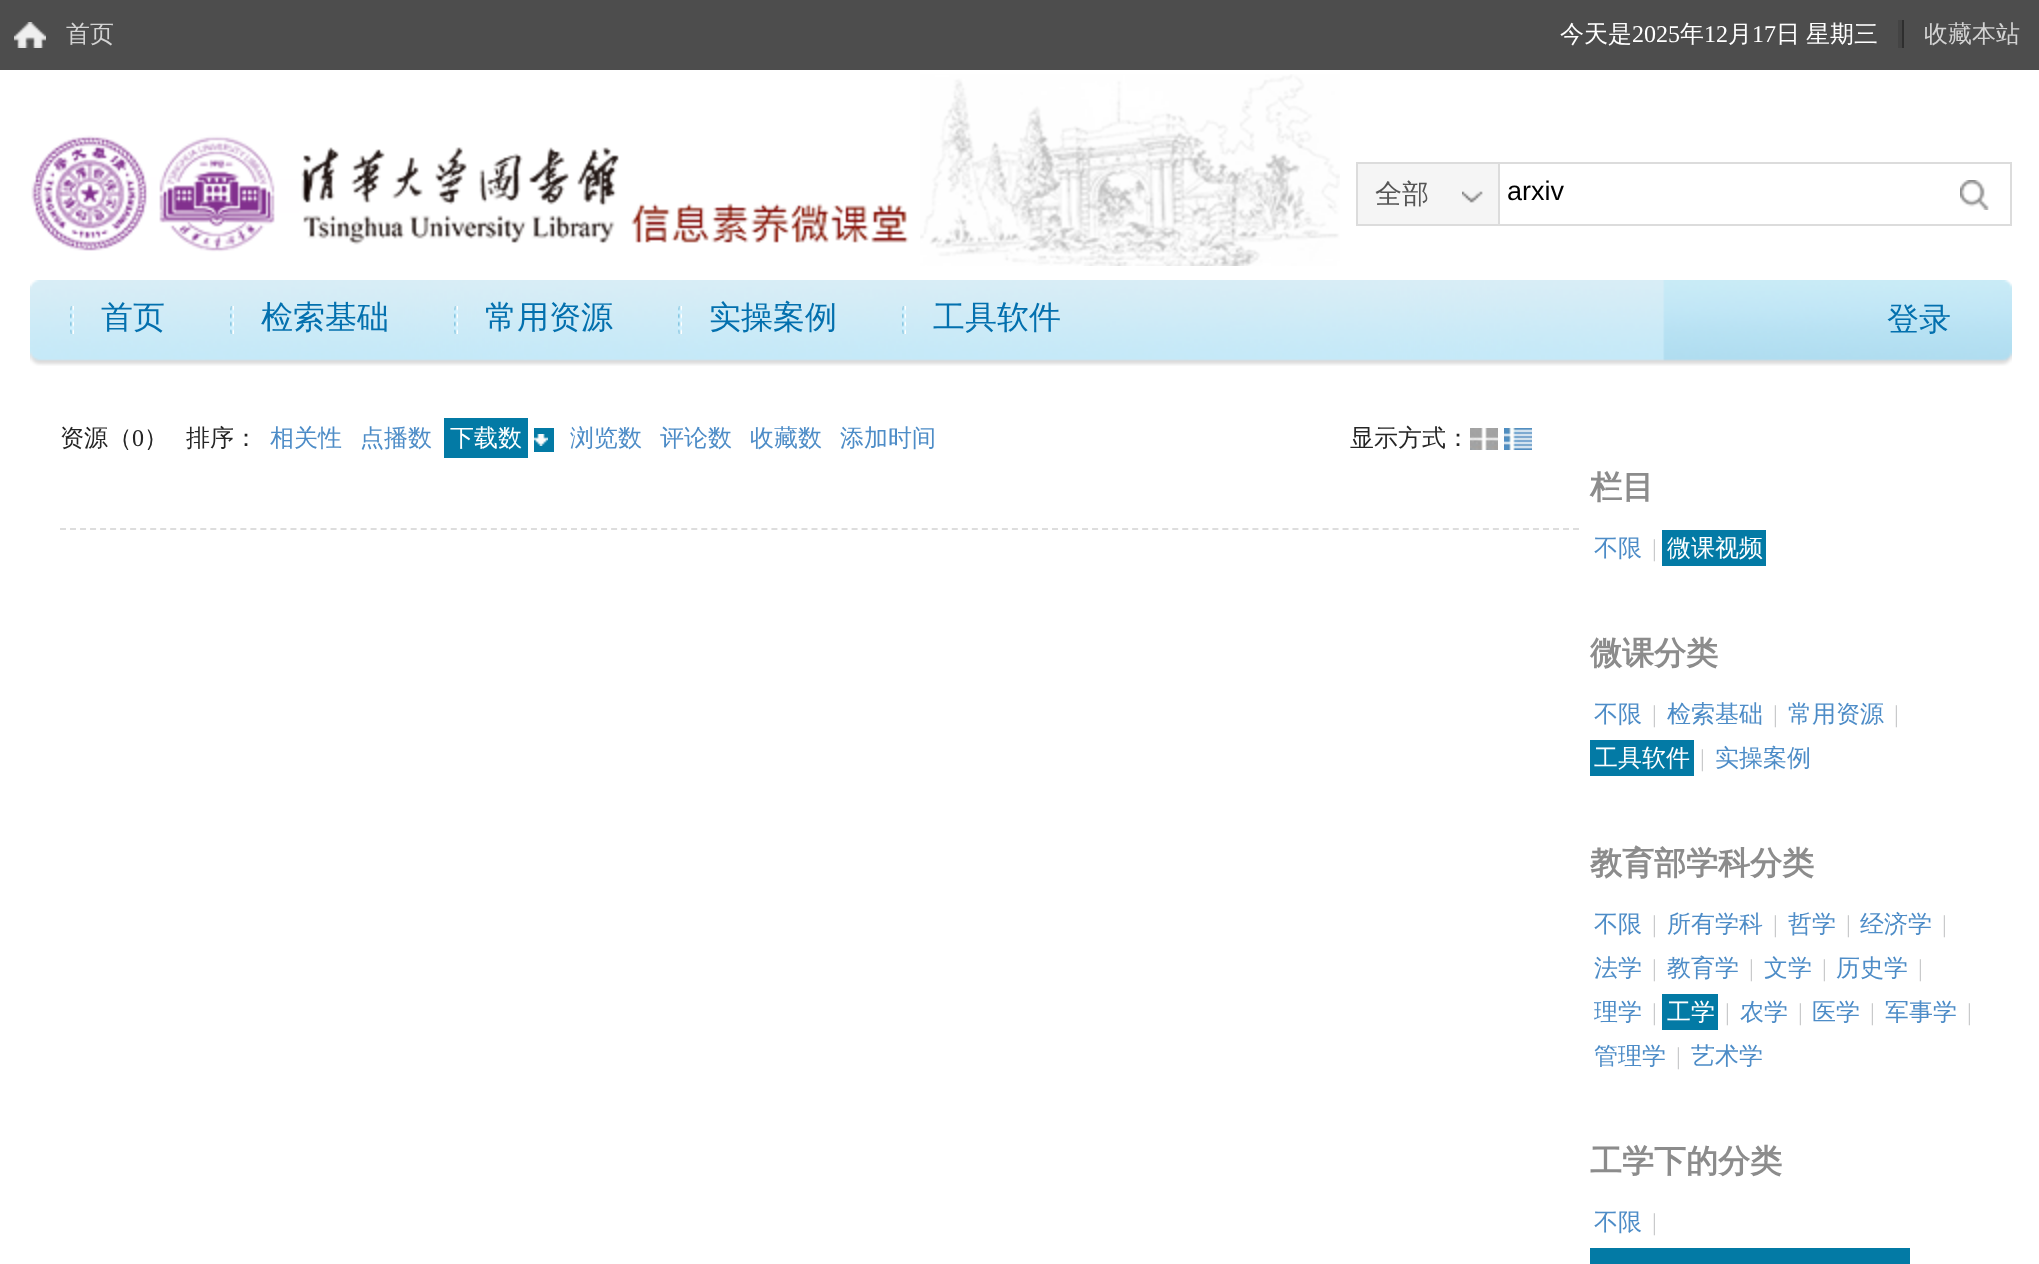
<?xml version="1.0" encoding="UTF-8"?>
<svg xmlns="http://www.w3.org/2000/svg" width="2039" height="1264">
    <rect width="100%" height="100%" fill="#FFFFFF"/>
    <rect x="0" y="0" width="2039" height="70" fill="#4D4D4D"/>
    <image x="14" y="22" width="32" height="26" href="img_01.png"/>
    <text x="66" y="42" font-family="WenQuanYi Zen Hei" font-size="24" font-weight="500" fill="#D3D3D3">首页</text>
    <text x="1560" y="42" font-family="WenQuanYi Zen Hei" font-size="24" font-weight="500" fill="#FFFFFF">今天是</text>
    <text x="1632" y="42" font-family="Liberation Serif" font-size="24" fill="#FFFFFF">2025</text>
    <text x="1680" y="42" font-family="WenQuanYi Zen Hei" font-size="24" font-weight="500" fill="#FFFFFF">年</text>
    <text x="1704" y="42" font-family="Liberation Serif" font-size="24" fill="#FFFFFF">12</text>
    <text x="1728" y="42" font-family="WenQuanYi Zen Hei" font-size="24" font-weight="500" fill="#FFFFFF">月</text>
    <text x="1752" y="42" font-family="Liberation Serif" font-size="24" fill="#FFFFFF">17</text>
    <text x="1776" y="42" font-family="WenQuanYi Zen Hei" font-size="24" font-weight="500" fill="#FFFFFF">日</text>
    <text x="1806" y="42" font-family="WenQuanYi Zen Hei" font-size="24" font-weight="500" fill="#FFFFFF">星期三</text>
    <rect x="1898" y="20" width="4" height="28" fill="#444444"/>
    <text x="1924" y="42" font-family="WenQuanYi Zen Hei" font-size="24" font-weight="500" fill="#D3D3D3">收藏本站</text>
    <rect x="1902" y="20" width="2" height="28" fill="#2E2E2E"/>
    <image x="31" y="135" width="878" height="117" href="img_02.png"/>
    <image x="920" y="74" width="420" height="192" href="img_03.png"/>
    <rect x="1357" y="163" width="654" height="62" fill="none" stroke="#DCDCDC" stroke-width="2"/>
    <rect x="1358" y="164" width="140" height="60" fill="#F5F5F5"/>
    <image x="1462" y="191" width="21" height="12" href="img_04.png"/>
    <rect x="1498" y="164" width="2" height="60" fill="#DCDCDC"/>
    <text x="1375" y="203" font-family="WenQuanYi Zen Hei" font-size="27" font-weight="500" fill="#555555">全部</text>
    <text x="1507" y="200" font-family="Liberation Sans" font-size="27" fill="#000000">arxiv</text>
    <image x="1960" y="180" width="29" height="30" href="img_05.png"/>
    <image x="30" y="280" width="1982" height="86" href="img_06.png"/>
    <image x="70" y="306" width="4" height="28" href="img_07.png"/>
    <text x="101" y="328" font-family="WenQuanYi Zen Hei" font-size="32" font-weight="500" fill="#0370AE">首页</text>
    <image x="230" y="306" width="4" height="28" href="img_08.png"/>
    <text x="261" y="328" font-family="WenQuanYi Zen Hei" font-size="32" font-weight="500" fill="#0370AE">检索基础</text>
    <image x="454" y="306" width="4" height="28" href="img_09.png"/>
    <text x="485" y="328" font-family="WenQuanYi Zen Hei" font-size="32" font-weight="500" fill="#0370AE">常用资源</text>
    <image x="678" y="306" width="4" height="28" href="img_10.png"/>
    <text x="709" y="328" font-family="WenQuanYi Zen Hei" font-size="32" font-weight="500" fill="#0370AE">实操案例</text>
    <image x="902" y="306" width="4" height="28" href="img_09.png"/>
    <text x="933" y="328" font-family="WenQuanYi Zen Hei" font-size="32" font-weight="500" fill="#0370AE">工具软件</text>
    <text x="1887" y="330" font-family="WenQuanYi Zen Hei" font-size="32" font-weight="500" fill="#0370AE">登录</text>
    <text x="60" y="446" font-family="WenQuanYi Zen Hei" font-size="24" font-weight="500" fill="#252525">资源（</text>
    <text x="132" y="446" font-family="Liberation Serif" font-size="24" fill="#252525">0</text>
    <text x="144" y="446" font-family="WenQuanYi Zen Hei" font-size="24" font-weight="500" fill="#252525">）</text>
    <text x="186" y="446" font-family="WenQuanYi Zen Hei" font-size="24" font-weight="500" fill="#252525">排序：</text>
    <text x="270" y="446" font-family="WenQuanYi Zen Hei" font-size="24" font-weight="500" fill="#4D8CC7">相关性</text>
    <text x="360" y="446" font-family="WenQuanYi Zen Hei" font-size="24" font-weight="500" fill="#4D8CC7">点播数</text>
    <rect x="444" y="418" width="84" height="40" fill="#037AA5"/>
    <rect x="534" y="428" width="20" height="24" fill="#037AA5"/>
    <text x="450" y="446" font-family="WenQuanYi Zen Hei" font-size="24" font-weight="500" fill="#FFFFFF">下载数</text>
    <image x="534" y="434" width="14" height="12" href="img_11.png"/>
    <text x="570" y="446" font-family="WenQuanYi Zen Hei" font-size="24" font-weight="500" fill="#4D8CC7">浏览数</text>
    <text x="660" y="446" font-family="WenQuanYi Zen Hei" font-size="24" font-weight="500" fill="#4D8CC7">评论数</text>
    <text x="750" y="446" font-family="WenQuanYi Zen Hei" font-size="24" font-weight="500" fill="#4D8CC7">收藏数</text>
    <text x="840" y="446" font-family="WenQuanYi Zen Hei" font-size="24" font-weight="500" fill="#4D8CC7">添加时间</text>
    <text x="1350" y="446" font-family="WenQuanYi Zen Hei" font-size="24" font-weight="500" fill="#252525">显示方式：</text>
    <image x="1470" y="428" width="28" height="22" href="img_12.png"/>
    <image x="1504" y="428" width="28" height="22" href="img_13.png"/>
    <path d="M 60 529 H 1580" fill="none" stroke="#DDDDDD" stroke-width="2" stroke-dasharray="6 4.02"/>
    <text x="1590" y="498" font-family="WenQuanYi Zen Hei" font-size="32" font-weight="700" fill="#8C8C8C">栏目</text>
    <text x="1594" y="556" font-family="WenQuanYi Zen Hei" font-size="24" font-weight="500" fill="#4D8CC7">不限</text>
    <text x="1652" y="556" font-family="Liberation Serif" font-size="24" fill="#C9CACB">|</text>
    <rect x="1662" y="530" width="104" height="36" fill="#037AA5"/>
    <text x="1667" y="556" font-family="WenQuanYi Zen Hei" font-size="24" font-weight="500" fill="#FFFFFF">微课视频</text>
    <text x="1590" y="664" font-family="WenQuanYi Zen Hei" font-size="32" font-weight="700" fill="#8C8C8C">微课分类</text>
    <text x="1594" y="722" font-family="WenQuanYi Zen Hei" font-size="24" font-weight="500" fill="#4D8CC7">不限</text>
    <text x="1652" y="722" font-family="Liberation Serif" font-size="24" fill="#C9CACB">|</text>
    <text x="1667" y="722" font-family="WenQuanYi Zen Hei" font-size="24" font-weight="500" fill="#4D8CC7">检索基础</text>
    <text x="1773" y="722" font-family="Liberation Serif" font-size="24" fill="#C9CACB">|</text>
    <text x="1788" y="722" font-family="WenQuanYi Zen Hei" font-size="24" font-weight="500" fill="#4D8CC7">常用资源</text>
    <text x="1894" y="722" font-family="Liberation Serif" font-size="24" fill="#C9CACB">|</text>
    <rect x="1590" y="740" width="104" height="36" fill="#037AA5"/>
    <text x="1594" y="766" font-family="WenQuanYi Zen Hei" font-size="24" font-weight="500" fill="#FFFFFF">工具软件</text>
    <text x="1700" y="766" font-family="Liberation Serif" font-size="24" fill="#C9CACB">|</text>
    <text x="1715" y="766" font-family="WenQuanYi Zen Hei" font-size="24" font-weight="500" fill="#4D8CC7">实操案例</text>
    <text x="1590" y="874" font-family="WenQuanYi Zen Hei" font-size="32" font-weight="700" fill="#8C8C8C">教育部学科分类</text>
    <text x="1594" y="932" font-family="WenQuanYi Zen Hei" font-size="24" font-weight="500" fill="#4D8CC7">不限</text>
    <text x="1652" y="932" font-family="Liberation Serif" font-size="24" fill="#C9CACB">|</text>
    <text x="1667" y="932" font-family="WenQuanYi Zen Hei" font-size="24" font-weight="500" fill="#4D8CC7">所有学科</text>
    <text x="1773" y="932" font-family="Liberation Serif" font-size="24" fill="#C9CACB">|</text>
    <text x="1788" y="932" font-family="WenQuanYi Zen Hei" font-size="24" font-weight="500" fill="#4D8CC7">哲学</text>
    <text x="1846" y="932" font-family="Liberation Serif" font-size="24" fill="#C9CACB">|</text>
    <text x="1860" y="932" font-family="WenQuanYi Zen Hei" font-size="24" font-weight="500" fill="#4D8CC7">经济学</text>
    <text x="1942" y="932" font-family="Liberation Serif" font-size="24" fill="#C9CACB">|</text>
    <text x="1594" y="976" font-family="WenQuanYi Zen Hei" font-size="24" font-weight="500" fill="#4D8CC7">法学</text>
    <text x="1652" y="976" font-family="Liberation Serif" font-size="24" fill="#C9CACB">|</text>
    <text x="1667" y="976" font-family="WenQuanYi Zen Hei" font-size="24" font-weight="500" fill="#4D8CC7">教育学</text>
    <text x="1749" y="976" font-family="Liberation Serif" font-size="24" fill="#C9CACB">|</text>
    <text x="1764" y="976" font-family="WenQuanYi Zen Hei" font-size="24" font-weight="500" fill="#4D8CC7">文学</text>
    <text x="1822" y="976" font-family="Liberation Serif" font-size="24" fill="#C9CACB">|</text>
    <text x="1836" y="976" font-family="WenQuanYi Zen Hei" font-size="24" font-weight="500" fill="#4D8CC7">历史学</text>
    <text x="1918" y="976" font-family="Liberation Serif" font-size="24" fill="#C9CACB">|</text>
    <text x="1594" y="1020" font-family="WenQuanYi Zen Hei" font-size="24" font-weight="500" fill="#4D8CC7">理学</text>
    <text x="1652" y="1020" font-family="Liberation Serif" font-size="24" fill="#C9CACB">|</text>
    <rect x="1662" y="994" width="56" height="36" fill="#037AA5"/>
    <text x="1667" y="1020" font-family="WenQuanYi Zen Hei" font-size="24" font-weight="500" fill="#FFFFFF">工学</text>
    <text x="1725" y="1020" font-family="Liberation Serif" font-size="24" fill="#C9CACB">|</text>
    <text x="1740" y="1020" font-family="WenQuanYi Zen Hei" font-size="24" font-weight="500" fill="#4D8CC7">农学</text>
    <text x="1798" y="1020" font-family="Liberation Serif" font-size="24" fill="#C9CACB">|</text>
    <text x="1812" y="1020" font-family="WenQuanYi Zen Hei" font-size="24" font-weight="500" fill="#4D8CC7">医学</text>
    <text x="1870" y="1020" font-family="Liberation Serif" font-size="24" fill="#C9CACB">|</text>
    <text x="1885" y="1020" font-family="WenQuanYi Zen Hei" font-size="24" font-weight="500" fill="#4D8CC7">军事学</text>
    <text x="1967" y="1020" font-family="Liberation Serif" font-size="24" fill="#C9CACB">|</text>
    <text x="1594" y="1064" font-family="WenQuanYi Zen Hei" font-size="24" font-weight="500" fill="#4D8CC7">管理学</text>
    <text x="1676" y="1064" font-family="Liberation Serif" font-size="24" fill="#C9CACB">|</text>
    <text x="1691" y="1064" font-family="WenQuanYi Zen Hei" font-size="24" font-weight="500" fill="#4D8CC7">艺术学</text>
    <text x="1590" y="1172" font-family="WenQuanYi Zen Hei" font-size="32" font-weight="700" fill="#8C8C8C">工学下的分类</text>
    <text x="1594" y="1230" font-family="WenQuanYi Zen Hei" font-size="24" font-weight="500" fill="#4D8CC7">不限</text>
    <text x="1652" y="1230" font-family="Liberation Serif" font-size="24" fill="#C9CACB">|</text>
    <rect x="1590" y="1248" width="320" height="16" fill="#037AA5"/>
</svg>
